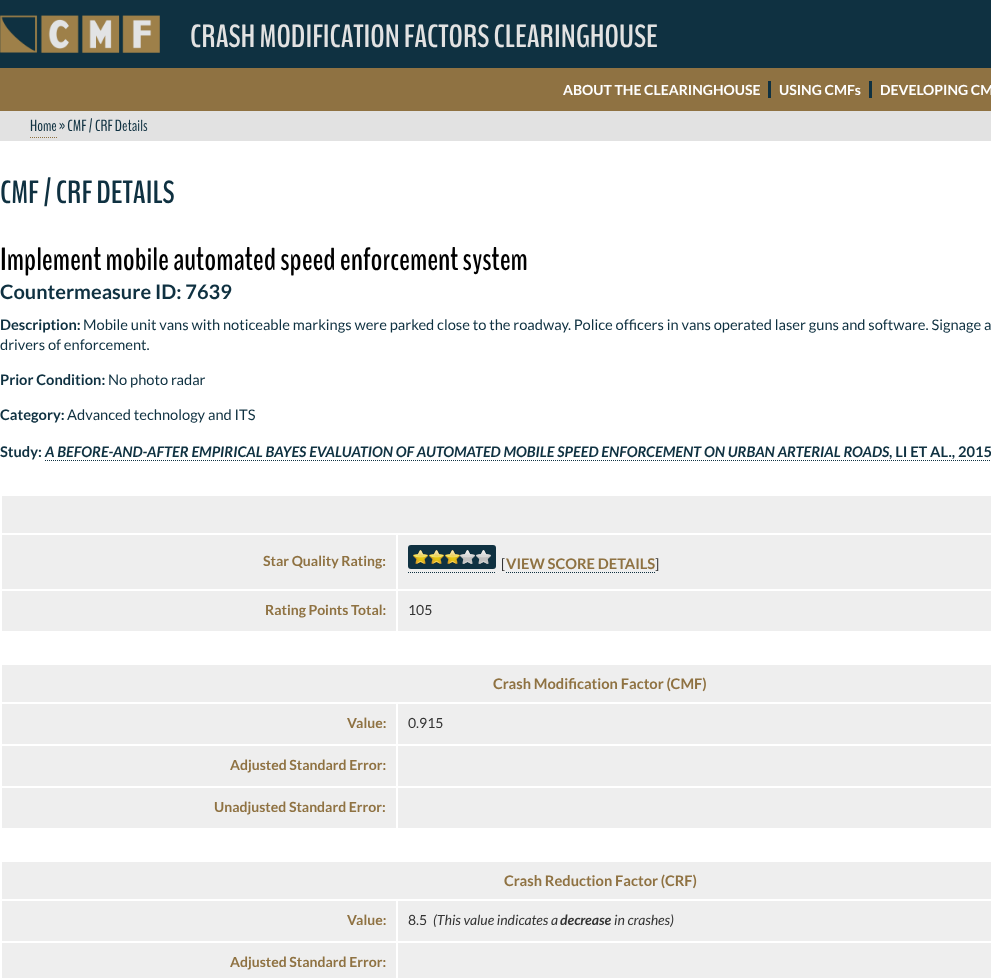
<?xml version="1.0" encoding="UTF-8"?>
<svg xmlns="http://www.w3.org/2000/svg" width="991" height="978">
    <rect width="100%" height="100%" fill="#0F3141"/>
    <image x="0" y="15" width="160" height="38" href="img_01.png"/>
    <text x="190" y="47" font-family="BenchNine" font-size="32" font-weight="700" fill="#E2E2E2">CRASH MODIFICATION FACTORS CLEARINGHOUSE</text>
    <rect x="0" y="68" width="991" height="43" fill="#8F7242"/>
    <rect x="768" y="81" width="3" height="17" fill="#0F3141"/>
    <text x="563" y="95" font-family="Lato" font-size="14" font-weight="700" fill="#FFFFFF">ABOUT THE CLEARINGHOUSE</text>
    <rect x="869" y="81" width="3" height="17" fill="#0F3141"/>
    <text x="779" y="95" font-family="Lato" font-size="14" font-weight="700" fill="#FFFFFF">USING CMFs</text>
    <text x="880" y="95" font-family="Lato" font-size="14" font-weight="700" fill="#FFFFFF">DEVELOPING CM</text>
    <rect x="0" y="111" width="991" height="30" fill="#E2E2E2"/>
    <text x="30" y="131" font-family="BenchNine" font-size="16" fill="#0F3141">Home » CMF / CRF Details</text>
    <path d="M 30 137.5 H 57" fill="none" stroke="#8F7242" stroke-dasharray="1 1"/>
    <rect x="0" y="141" width="991" height="837" fill="#FFFFFF"/>
    <text x="0" y="203" font-family="BenchNine" font-size="32" font-weight="700" fill="#0F3141">CMF / CRF DETAILS</text>
    <text x="0" y="270" font-family="BenchNine" font-size="32" font-weight="700" fill="#000000">Implement mobile automated speed enforcement system</text>
    <text x="0" y="299" font-family="Lato" font-size="20" font-weight="700" fill="#0F3141">Countermeasure ID: 7639</text>
    <text x="0" y="330" font-family="Lato" font-size="14.67" font-weight="700" fill="#0F3141">Description:</text>
    <text x="83" y="330" font-family="Lato" font-size="14.67" fill="#0F3141">Mobile unit vans with noticeable markings were parked close to the roadway. Police officers in vans operated laser guns and software. Signage a</text>
    <text x="0" y="350" font-family="Lato" font-size="14.67" fill="#0F3141">drivers of enforcement.</text>
    <text x="0" y="385" font-family="Lato" font-size="14.67" font-weight="700" fill="#0F3141">Prior Condition:</text>
    <text x="108" y="385" font-family="Lato" font-size="14.67" fill="#0F3141">No photo radar</text>
    <text x="0" y="420" font-family="Lato" font-size="14.67" font-weight="700" fill="#0F3141">Category:</text>
    <text x="67" y="420" font-family="Lato" font-size="14.67" fill="#0F3141">Advanced technology and ITS</text>
    <text x="0" y="457" font-family="Lato" font-size="14.67" font-weight="700" fill="#0F3141">Study:</text>
    <text x="45" y="457" font-family="Lato" font-size="14.67" font-weight="700" font-style="italic" fill="#0F3141">A BEFORE-AND-AFTER EMPIRICAL BAYES EVALUATION OF AUTOMATED MOBILE SPEED ENFORCEMENT ON URBAN ARTERIAL ROADS</text>
    <text x="889" y="457" font-family="Lato" font-size="14.67" font-weight="700" fill="#0F3141">, LI ET AL., 2015</text>
    <path d="M 45 460.5 H 889" fill="none" stroke="#0F3141" stroke-dasharray="1 1"/>
    <path d="M 889 460.5 H 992" fill="none" stroke="#0F3141" stroke-dasharray="1 1"/>
    <rect x="2" y="496" width="989" height="37" fill="#EEEEEE"/>
    <rect x="2" y="535" width="394" height="54" fill="#EEEEEE"/>
    <text x="263" y="566" font-family="Lato" font-size="14" font-weight="700" fill="#8F7242">Star Quality Rating:</text>
    <rect x="398" y="535" width="593" height="54" fill="#EEEEEE"/>
    <rect x="408" y="545" width="88" height="24" rx="3" fill="#0F3141"/>
    <image x="413" y="550" width="78" height="14" href="img_02.png"/>
    <text x="501" y="569" font-family="Lato" font-size="14" fill="#333333">[</text>
    <text x="506" y="569" font-family="Lato" font-size="14.67" font-weight="700" fill="#8F7242">VIEW SCORE DETAILS</text>
    <path d="M 506 572.5 H 655" fill="none" stroke="#0F3141" stroke-dasharray="1 1"/>
    <text x="655" y="569" font-family="Lato" font-size="14" fill="#333333">]</text>
    <path d="M 408 572.5 H 496" fill="none" stroke="#0F3141" stroke-dasharray="1 1"/>
    <rect x="2" y="591" width="394" height="40" fill="#EEEEEE"/>
    <text x="265" y="615" font-family="Lato" font-size="14" font-weight="700" fill="#8F7242">Rating Points Total:</text>
    <rect x="398" y="591" width="593" height="40" fill="#EEEEEE"/>
    <text x="408" y="615" font-family="Lato" font-size="14" fill="#333333">105</text>
    <rect x="2" y="665" width="989" height="37" fill="#EEEEEE"/>
    <text x="493" y="689" font-family="Lato" font-size="14.67" font-weight="700" fill="#8F7242">Crash Modification Factor (CMF)</text>
    <rect x="2" y="704" width="394" height="40" fill="#EEEEEE"/>
    <text x="347" y="728" font-family="Lato" font-size="14" font-weight="700" fill="#8F7242">Value:</text>
    <rect x="398" y="704" width="593" height="40" fill="#EEEEEE"/>
    <text x="408" y="728" font-family="Lato" font-size="14" fill="#333333">0.915</text>
    <rect x="2" y="746" width="394" height="40" fill="#EEEEEE"/>
    <text x="230" y="770" font-family="Lato" font-size="14" font-weight="700" fill="#8F7242">Adjusted Standard Error:</text>
    <rect x="398" y="746" width="593" height="40" fill="#EEEEEE"/>
    <rect x="2" y="788" width="394" height="40" fill="#EEEEEE"/>
    <text x="214" y="812" font-family="Lato" font-size="14" font-weight="700" fill="#8F7242">Unadjusted Standard Error:</text>
    <rect x="398" y="788" width="593" height="40" fill="#EEEEEE"/>
    <rect x="2" y="862" width="989" height="37" fill="#EEEEEE"/>
    <text x="504" y="886" font-family="Lato" font-size="14.67" font-weight="700" fill="#8F7242">Crash Reduction Factor (CRF)</text>
    <rect x="2" y="901" width="394" height="40" fill="#EEEEEE"/>
    <text x="347" y="925" font-family="Lato" font-size="14" font-weight="700" fill="#8F7242">Value:</text>
    <rect x="398" y="901" width="593" height="40" fill="#EEEEEE"/>
    <text x="408" y="925" font-family="Lato" font-size="14" fill="#333333">8.5</text>
    <text x="433" y="925" font-family="Lato" font-size="14" font-style="italic" fill="#333333">(This value indicates a</text>
    <text x="560" y="925" font-family="Lato" font-size="14" font-weight="700" font-style="italic" fill="#333333">decrease</text>
    <text x="614" y="925" font-family="Lato" font-size="14" font-style="italic" fill="#333333">in crashes)</text>
    <rect x="2" y="943" width="394" height="35" fill="#EEEEEE"/>
    <text x="230" y="967" font-family="Lato" font-size="14" font-weight="700" fill="#8F7242">Adjusted Standard Error:</text>
    <rect x="398" y="943" width="593" height="35" fill="#EEEEEE"/>
</svg>
